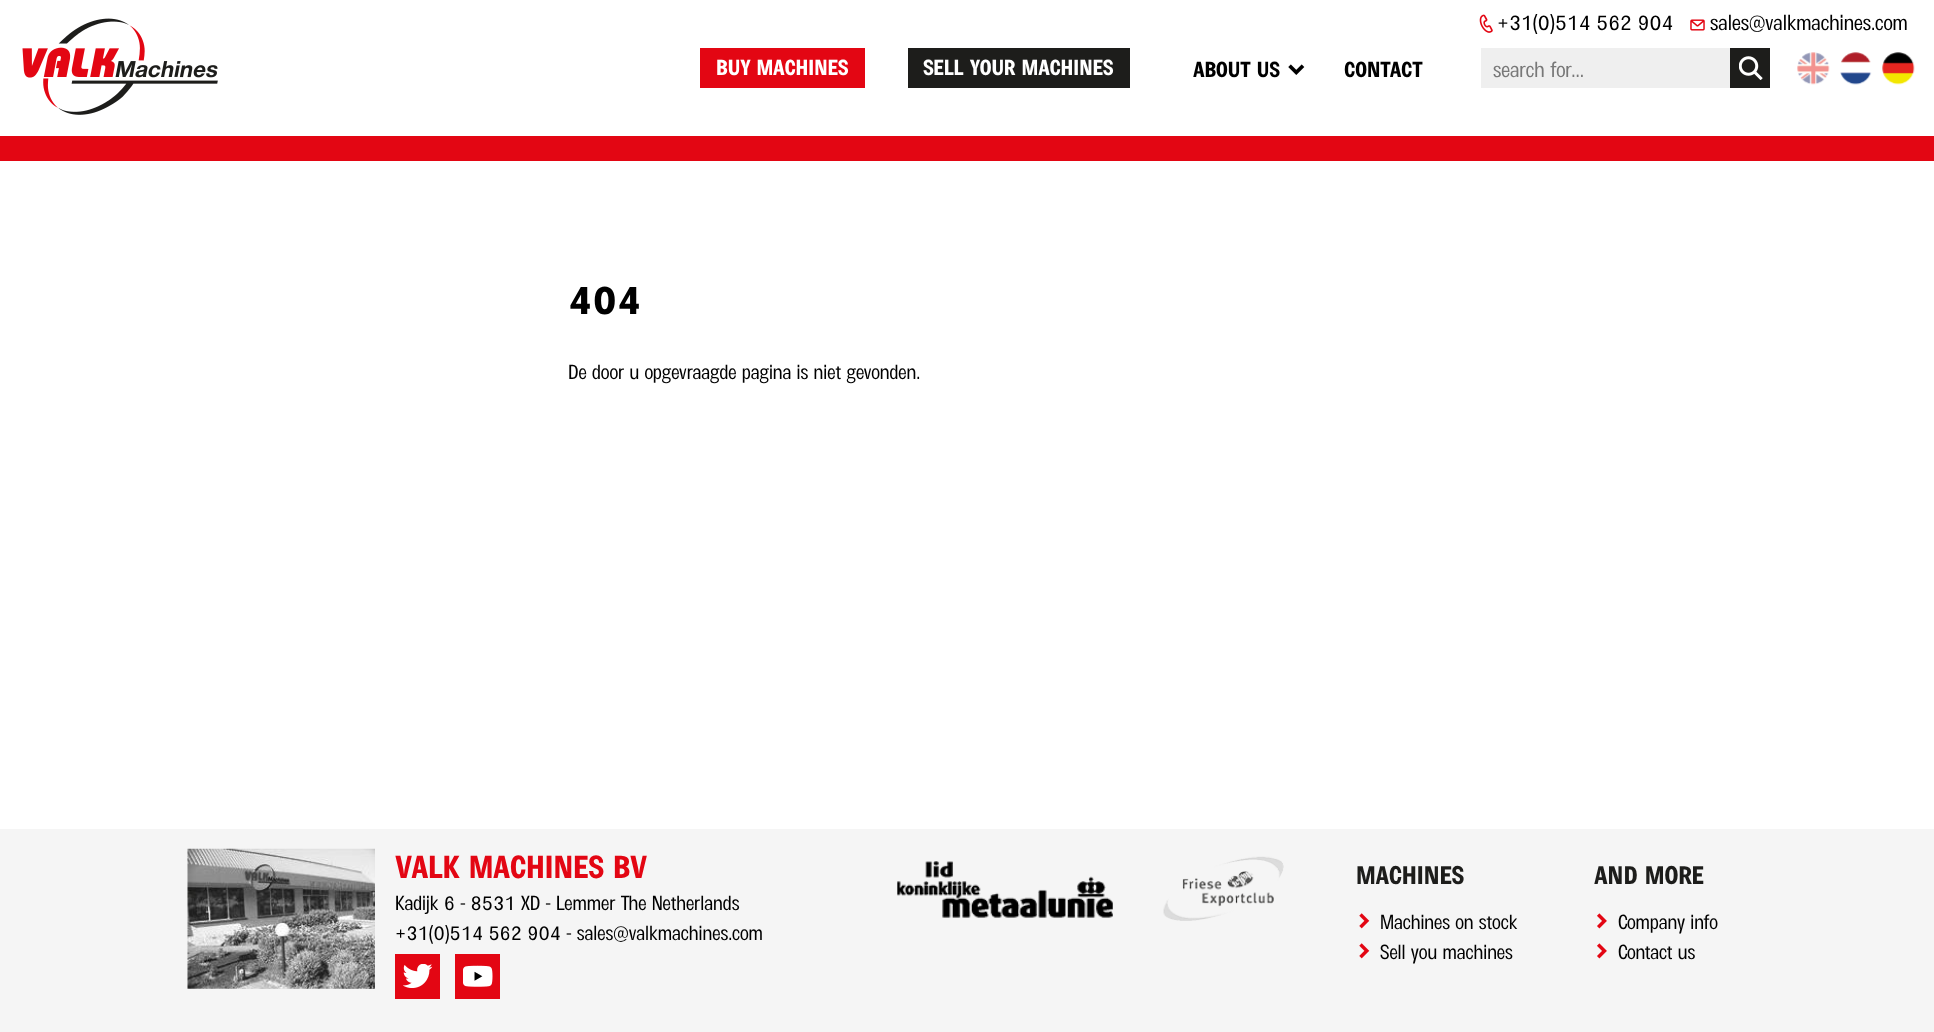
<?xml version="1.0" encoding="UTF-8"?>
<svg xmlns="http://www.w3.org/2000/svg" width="1934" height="1032">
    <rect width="100%" height="100%" fill="#FFFFFF"/>
    <rect x="0" y="136" width="1934" height="25" fill="#E30613"/>
    <image x="22" y="18" width="196" height="97" href="img_01.png"/>
    <image x="1479" y="14" width="14" height="19" href="img_02.png"/>
    <text x="1497" y="30" font-family="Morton" font-size="21.25" fill="#000000">+31(0)514 562 904</text>
    <image x="1690" y="19" width="15" height="12" href="img_03.png"/>
    <text x="1710" y="30" font-family="Morton" font-size="21.25" fill="#000000">sales@valkmachines.com</text>
    <rect x="700" y="48" width="165" height="40" fill="#E30613"/>
    <text x="716" y="75" font-family="Morton" font-size="21.25" font-weight="700" fill="#FFFFFF">BUY MACHINES</text>
    <rect x="908" y="48" width="222" height="40" fill="#1D1D1B"/>
    <text x="923" y="75" font-family="Morton" font-size="21.25" font-weight="700" fill="#FFFFFF">SELL YOUR MACHINES</text>
    <text x="1193" y="77" font-family="Morton" font-size="21.25" font-weight="700" fill="#000000">ABOUT US</text>
    <image x="1288" y="64" width="17" height="11" href="img_04.png"/>
    <text x="1344" y="77" font-family="Morton" font-size="21.25" font-weight="700" fill="#000000">CONTACT</text>
    <rect x="1481" y="48" width="249" height="40" fill="#EFEFEF"/>
    <text x="1493" y="77" font-family="Morton" font-size="21.25" fill="#787878">search for...</text>
    <rect x="1730" y="48" width="40" height="40" fill="#1D1D1B"/>
    <image x="1739" y="56" width="24" height="24" href="img_05.png"/>
    <image x="1797" y="52" width="33" height="33" href="img_06.png"/>
    <image x="1840" y="52" width="32" height="33" href="img_07.png"/>
    <image x="1882" y="52" width="33" height="33" href="img_08.png"/>
    <text x="568" y="314" font-family="Morton" font-size="40" font-weight="700" fill="#000000">404</text>
    <text x="568" y="379" font-family="Morton" font-size="20" fill="#000000">De door u opgevraagde pagina is niet gevonden.</text>
    <rect x="0" y="829" width="1934" height="203" fill="#F5F5F5"/>
    <image x="187" y="848" width="188" height="141" href="img_09.png"/>
    <text x="395" y="878" font-family="Morton" font-size="31.25" font-weight="700" fill="#E30613">VALK MACHINES BV</text>
    <text font-family="Morton" font-size="20" fill="#000000">
        <tspan x="395" y="910">Kadijk 6 - 8531 XD - Lemmer The Netherlands</tspan>
        <tspan x="395" y="940">+31(0)514 562 904 - sales@valkmachines.com</tspan>
    </text>
    <rect x="395" y="954" width="45" height="45" fill="#E30613"/>
    <image x="403" y="964" width="30" height="24" href="img_10.png"/>
    <rect x="455" y="954" width="45" height="45" fill="#E30613"/>
    <image x="463" y="965" width="30" height="22" href="img_11.png"/>
    <image x="897" y="861" width="216" height="57" href="img_12.png"/>
    <image x="1163" y="856" width="121" height="65" href="img_13.png"/>
    <text x="1356" y="884" font-family="Morton" font-size="25" font-weight="700" fill="#1D1D1B">MACHINES</text>
    <image x="1359" y="913" width="11" height="16" href="img_14.png"/>
    <text x="1380" y="929" font-family="Morton" font-size="20" fill="#000000">Machines on stock</text>
    <image x="1359" y="943" width="11" height="16" href="img_14.png"/>
    <text x="1380" y="959" font-family="Morton" font-size="20" fill="#000000">Sell you machines</text>
    <text x="1594" y="884" font-family="Morton" font-size="25" font-weight="700" fill="#1D1D1B">AND MORE</text>
    <image x="1597" y="913" width="10" height="16" href="img_15.png"/>
    <text x="1618" y="929" font-family="Morton" font-size="20" fill="#000000">Company info</text>
    <image x="1597" y="943" width="10" height="16" href="img_15.png"/>
    <text x="1618" y="959" font-family="Morton" font-size="20" fill="#000000">Contact us</text>
</svg>
